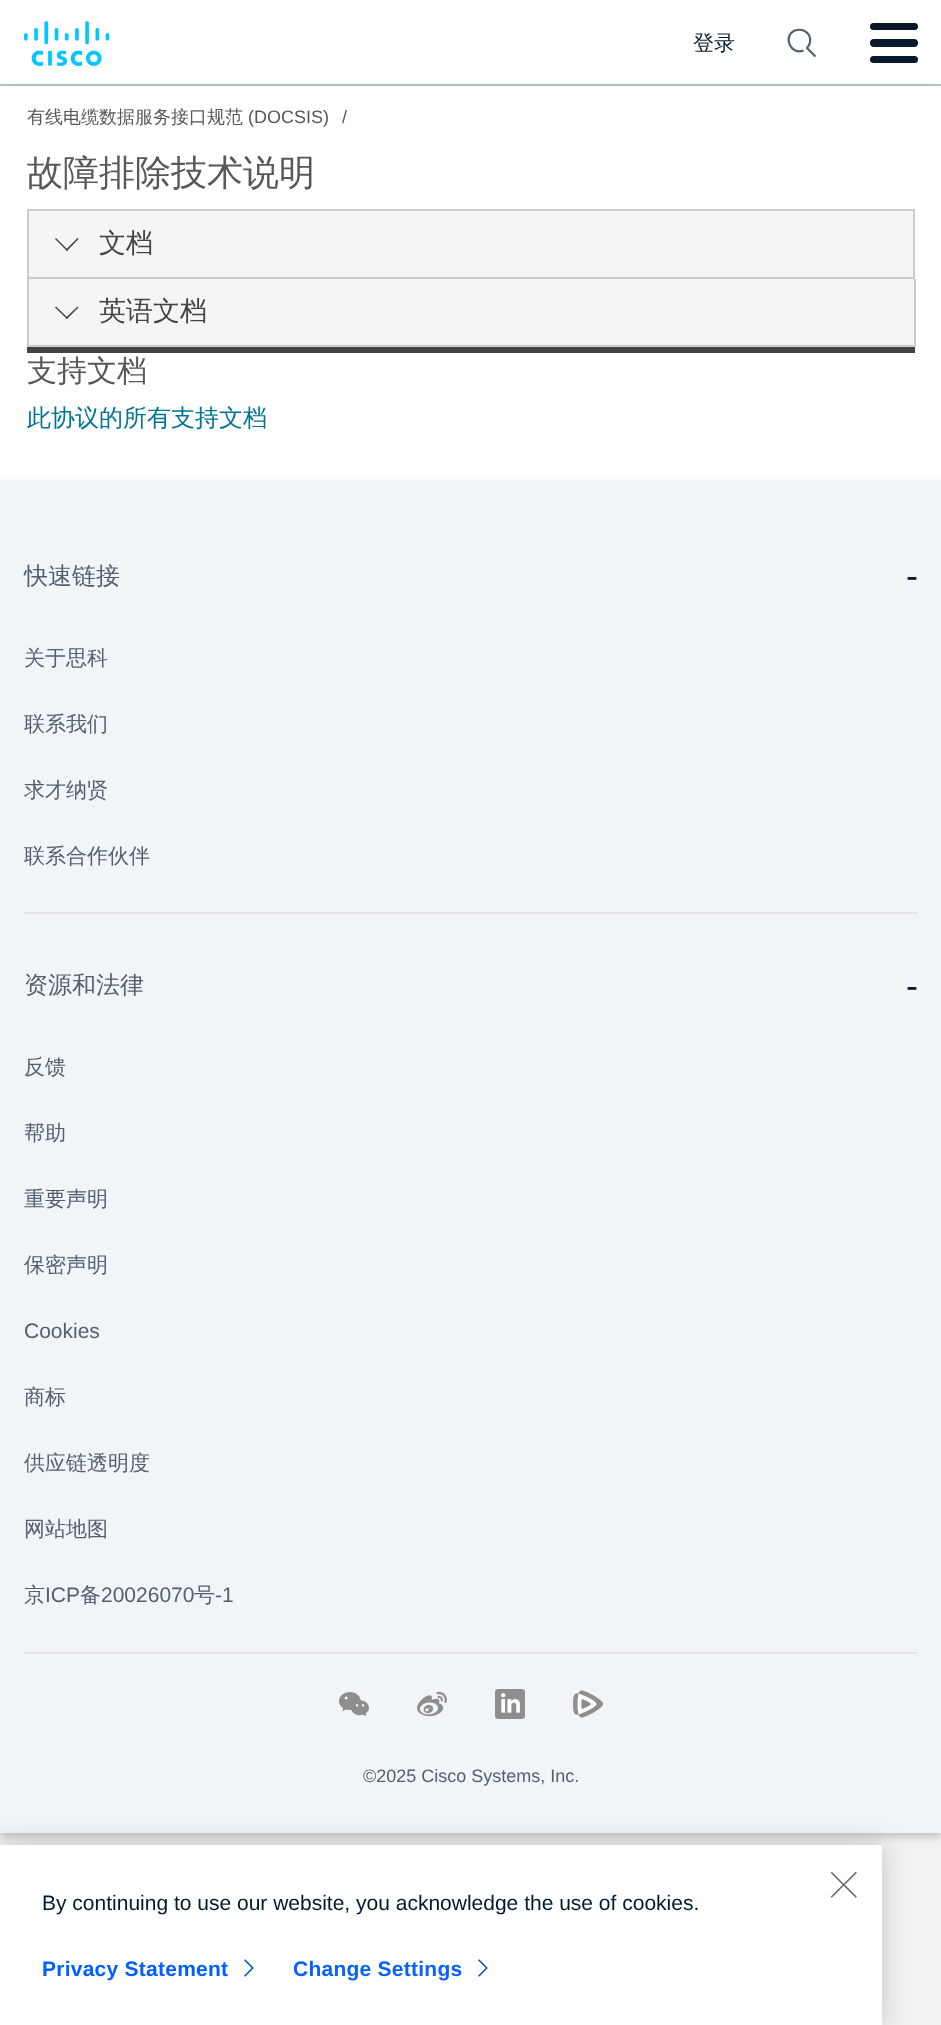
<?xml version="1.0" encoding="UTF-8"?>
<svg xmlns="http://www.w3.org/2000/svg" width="941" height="2025">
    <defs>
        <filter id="blur1" x="-50%" y="-200%" width="200%" height="500%"><feGaussianBlur stdDeviation="4"/></filter>
        <clipPath id="clip1"><path d="M 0 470 H 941 V 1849 H 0 Z M 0 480 H 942 V 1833 H 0 Z" clip-rule="evenodd"/></clipPath>
        <filter id="blur2" x="-50%" y="-200%" width="200%" height="500%"><feGaussianBlur stdDeviation="13.5"/></filter>
    </defs>
    <rect width="100%" height="100%" fill="#F2F2F2"/>
    <rect x="0" y="0" width="941" height="84" fill="#FFFFFF"/>
    <rect x="0" y="84" width="941" height="2" fill="#B9C1C9"/>
    <image x="24" y="21" width="86" height="45" href="img_01.png"/>
    <text x="693" y="50" font-family="WenQuanYi Zen Hei" font-size="21" font-weight="500" fill="#07182D">登录</text>
    <path d="M 803.5 50.5 C 790.5 55.5 782 36 795 30.5 C 798 29.5 801 29.5 803.5 30.5 C 807 32 809.5 35 810 38 C 810.5 42 809.5 45.5 807 48 L 815.5 56.5" fill="none" stroke="#536070" stroke-width="2.2" stroke-linejoin="round"/>
    <rect x="870" y="23" width="48" height="7" rx="3.5" fill="#07182D"/>
    <rect x="870" y="39" width="48" height="8" rx="4" fill="#07182D"/>
    <rect x="870" y="56" width="48" height="7" rx="3.5" fill="#07182D"/>
    <rect x="0" y="89" width="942" height="1747" fill="#000000" fill-opacity="0.12" filter="url(#blur1)"/>
    <rect x="0" y="86" width="941" height="394" fill="#FFFFFF"/>
    <text x="27" y="123" font-family="WenQuanYi Zen Hei" font-size="18" font-weight="500" fill="#58585B">有线电缆数据服务接口规范</text>
    <text x="248" y="123" font-family="Liberation Sans" font-size="18" fill="#58585B">(DOCSIS)</text>
    <text x="342" y="123" font-family="Liberation Sans" font-size="18" fill="#58585B">/</text>
    <text x="27" y="185" font-family="WenQuanYi Zen Hei" font-size="36" font-weight="500" fill="#58585B">故障排除技术说明</text>
    <rect x="27" y="347" width="888" height="6" fill="#444444"/>
    <rect x="28" y="210" width="886" height="68" fill="#F5F5F5" stroke="#CCCCCC" stroke-width="2"/>
    <path d="M 77.5 238 L 78.5 239 L 67 251 L 65.5 250 Z" fill="#444444"/>
    <path d="M 56 238 L 68 250 L 67 251 L 55 239 Z" fill="#444444"/>
    <text x="99" y="252" font-family="WenQuanYi Zen Hei" font-size="27" font-weight="500" fill="#444444">文档</text>
    <rect x="29" y="279" width="885" height="66" fill="#F5F5F5"/>
    <rect x="914" y="279" width="2" height="68" fill="#CCCCCC"/>
    <rect x="27" y="345" width="888" height="2" fill="#CCCCCC"/>
    <rect x="27" y="279" width="2" height="68" fill="#CCCCCC"/>
    <path d="M 77.5 306.5 L 78.5 307.5 L 67 319 L 65.5 318 Z" fill="#444444"/>
    <path d="M 56 306.5 L 68 318 L 67 319 L 55 307.5 Z" fill="#444444"/>
    <text x="99" y="320" font-family="WenQuanYi Zen Hei" font-size="27" font-weight="500" fill="#444444">英语文档</text>
    <text x="27" y="381" font-family="WenQuanYi Zen Hei" font-size="30" font-weight="500" fill="#58585B">支持文档</text>
    <text x="27" y="426" font-family="WenQuanYi Zen Hei" font-size="24" font-weight="500" fill="#007493">此协议的所有支持文档</text>
    <rect x="0" y="480" width="941" height="1353" fill="#F2F5F7"/>
    <g clip-path="url(#clip1)">
        <rect x="0" y="483" width="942" height="1353" fill="#000000" fill-opacity="0.12" filter="url(#blur1)"/>
    </g>
    <text x="24" y="584" font-family="WenQuanYi Zen Hei" font-size="24" font-weight="500" fill="#536070">快速链接</text>
    <text x="906" y="588" font-family="Liberation Sans" font-size="36" fill="#07182D">-</text>
    <text x="24" y="665" font-family="WenQuanYi Zen Hei" font-size="21" font-weight="500" fill="#536070">关于思科</text>
    <text x="24" y="731" font-family="WenQuanYi Zen Hei" font-size="21" font-weight="500" fill="#536070">联系我们</text>
    <text x="24" y="797" font-family="WenQuanYi Zen Hei" font-size="21" font-weight="500" fill="#536070">求才纳贤</text>
    <text x="24" y="863" font-family="WenQuanYi Zen Hei" font-size="21" font-weight="500" fill="#536070">联系合作伙伴</text>
    <rect x="24" y="912" width="894" height="2" fill="#E6E7E8"/>
    <text x="24" y="993" font-family="WenQuanYi Zen Hei" font-size="24" font-weight="500" fill="#536070">资源和法律</text>
    <text x="906" y="998" font-family="Liberation Sans" font-size="36" fill="#07182D">-</text>
    <text x="24" y="1074" font-family="WenQuanYi Zen Hei" font-size="21" font-weight="500" fill="#536070">反馈</text>
    <text x="24" y="1140" font-family="WenQuanYi Zen Hei" font-size="21" font-weight="500" fill="#536070">帮助</text>
    <text x="24" y="1206" font-family="WenQuanYi Zen Hei" font-size="21" font-weight="500" fill="#536070">重要声明</text>
    <text x="24" y="1272" font-family="WenQuanYi Zen Hei" font-size="21" font-weight="500" fill="#536070">保密声明</text>
    <text x="24" y="1338" font-family="Liberation Sans" font-size="21" fill="#536070">Cookies</text>
    <text x="24" y="1404" font-family="WenQuanYi Zen Hei" font-size="21" font-weight="500" fill="#536070">商标</text>
    <text x="24" y="1470" font-family="WenQuanYi Zen Hei" font-size="21" font-weight="500" fill="#536070">供应链透明度</text>
    <text x="24" y="1536" font-family="WenQuanYi Zen Hei" font-size="21" font-weight="500" fill="#536070">网站地图</text>
    <text x="24" y="1602" font-family="WenQuanYi Zen Hei" font-size="21" font-weight="500" fill="#536070">京</text>
    <text x="45" y="1602" font-family="Liberation Sans" font-size="21" fill="#536070">ICP</text>
    <text x="80" y="1602" font-family="WenQuanYi Zen Hei" font-size="21" font-weight="500" fill="#536070">备</text>
    <text x="101" y="1602" font-family="Liberation Sans" font-size="21" fill="#536070">20026070</text>
    <text x="194" y="1602" font-family="WenQuanYi Zen Hei" font-size="21" font-weight="500" fill="#536070">号</text>
    <text x="215" y="1602" font-family="Liberation Sans" font-size="21" fill="#536070">-1</text>
    <rect x="24" y="1652" width="894" height="2" fill="#E6E7E8"/>
    <image x="339" y="1692" width="30" height="24" href="img_02.png"/>
    <image x="417" y="1691" width="30" height="26" href="img_03.png"/>
    <image x="495" y="1689" width="30" height="30" href="img_04.png"/>
    <image x="573" y="1690" width="30" height="28" href="img_05.png"/>
    <text x="363" y="1782" font-family="Liberation Sans" font-size="18" fill="#536070">©2025 Cisco Systems, Inc.</text>
    <rect x="0" y="1845" width="882" height="180" fill="#000000" fill-opacity="0.2" filter="url(#blur2)"/>
    <rect x="0" y="1845" width="882" height="180" fill="#FFFFFF"/>
    <image x="830" y="1871" width="27" height="27" href="img_06.png"/>
    <text x="42" y="1910" font-family="Liberation Sans" font-size="21" fill="#07182D">By continuing to use our website, you acknowledge the use of cookies.</text>
    <text x="42" y="1976" font-family="Liberation Sans" font-size="21" font-weight="700" letter-spacing="0.25" fill="#0060FF">Privacy Statement</text>
    <image x="244" y="1959" width="10" height="18" href="img_07.png"/>
    <text x="293" y="1976" font-family="Liberation Sans" font-size="21" font-weight="700" letter-spacing="0.25" fill="#0A60FF">Change Settings</text>
    <image x="478" y="1959" width="10" height="18" href="img_07.png"/>
</svg>
